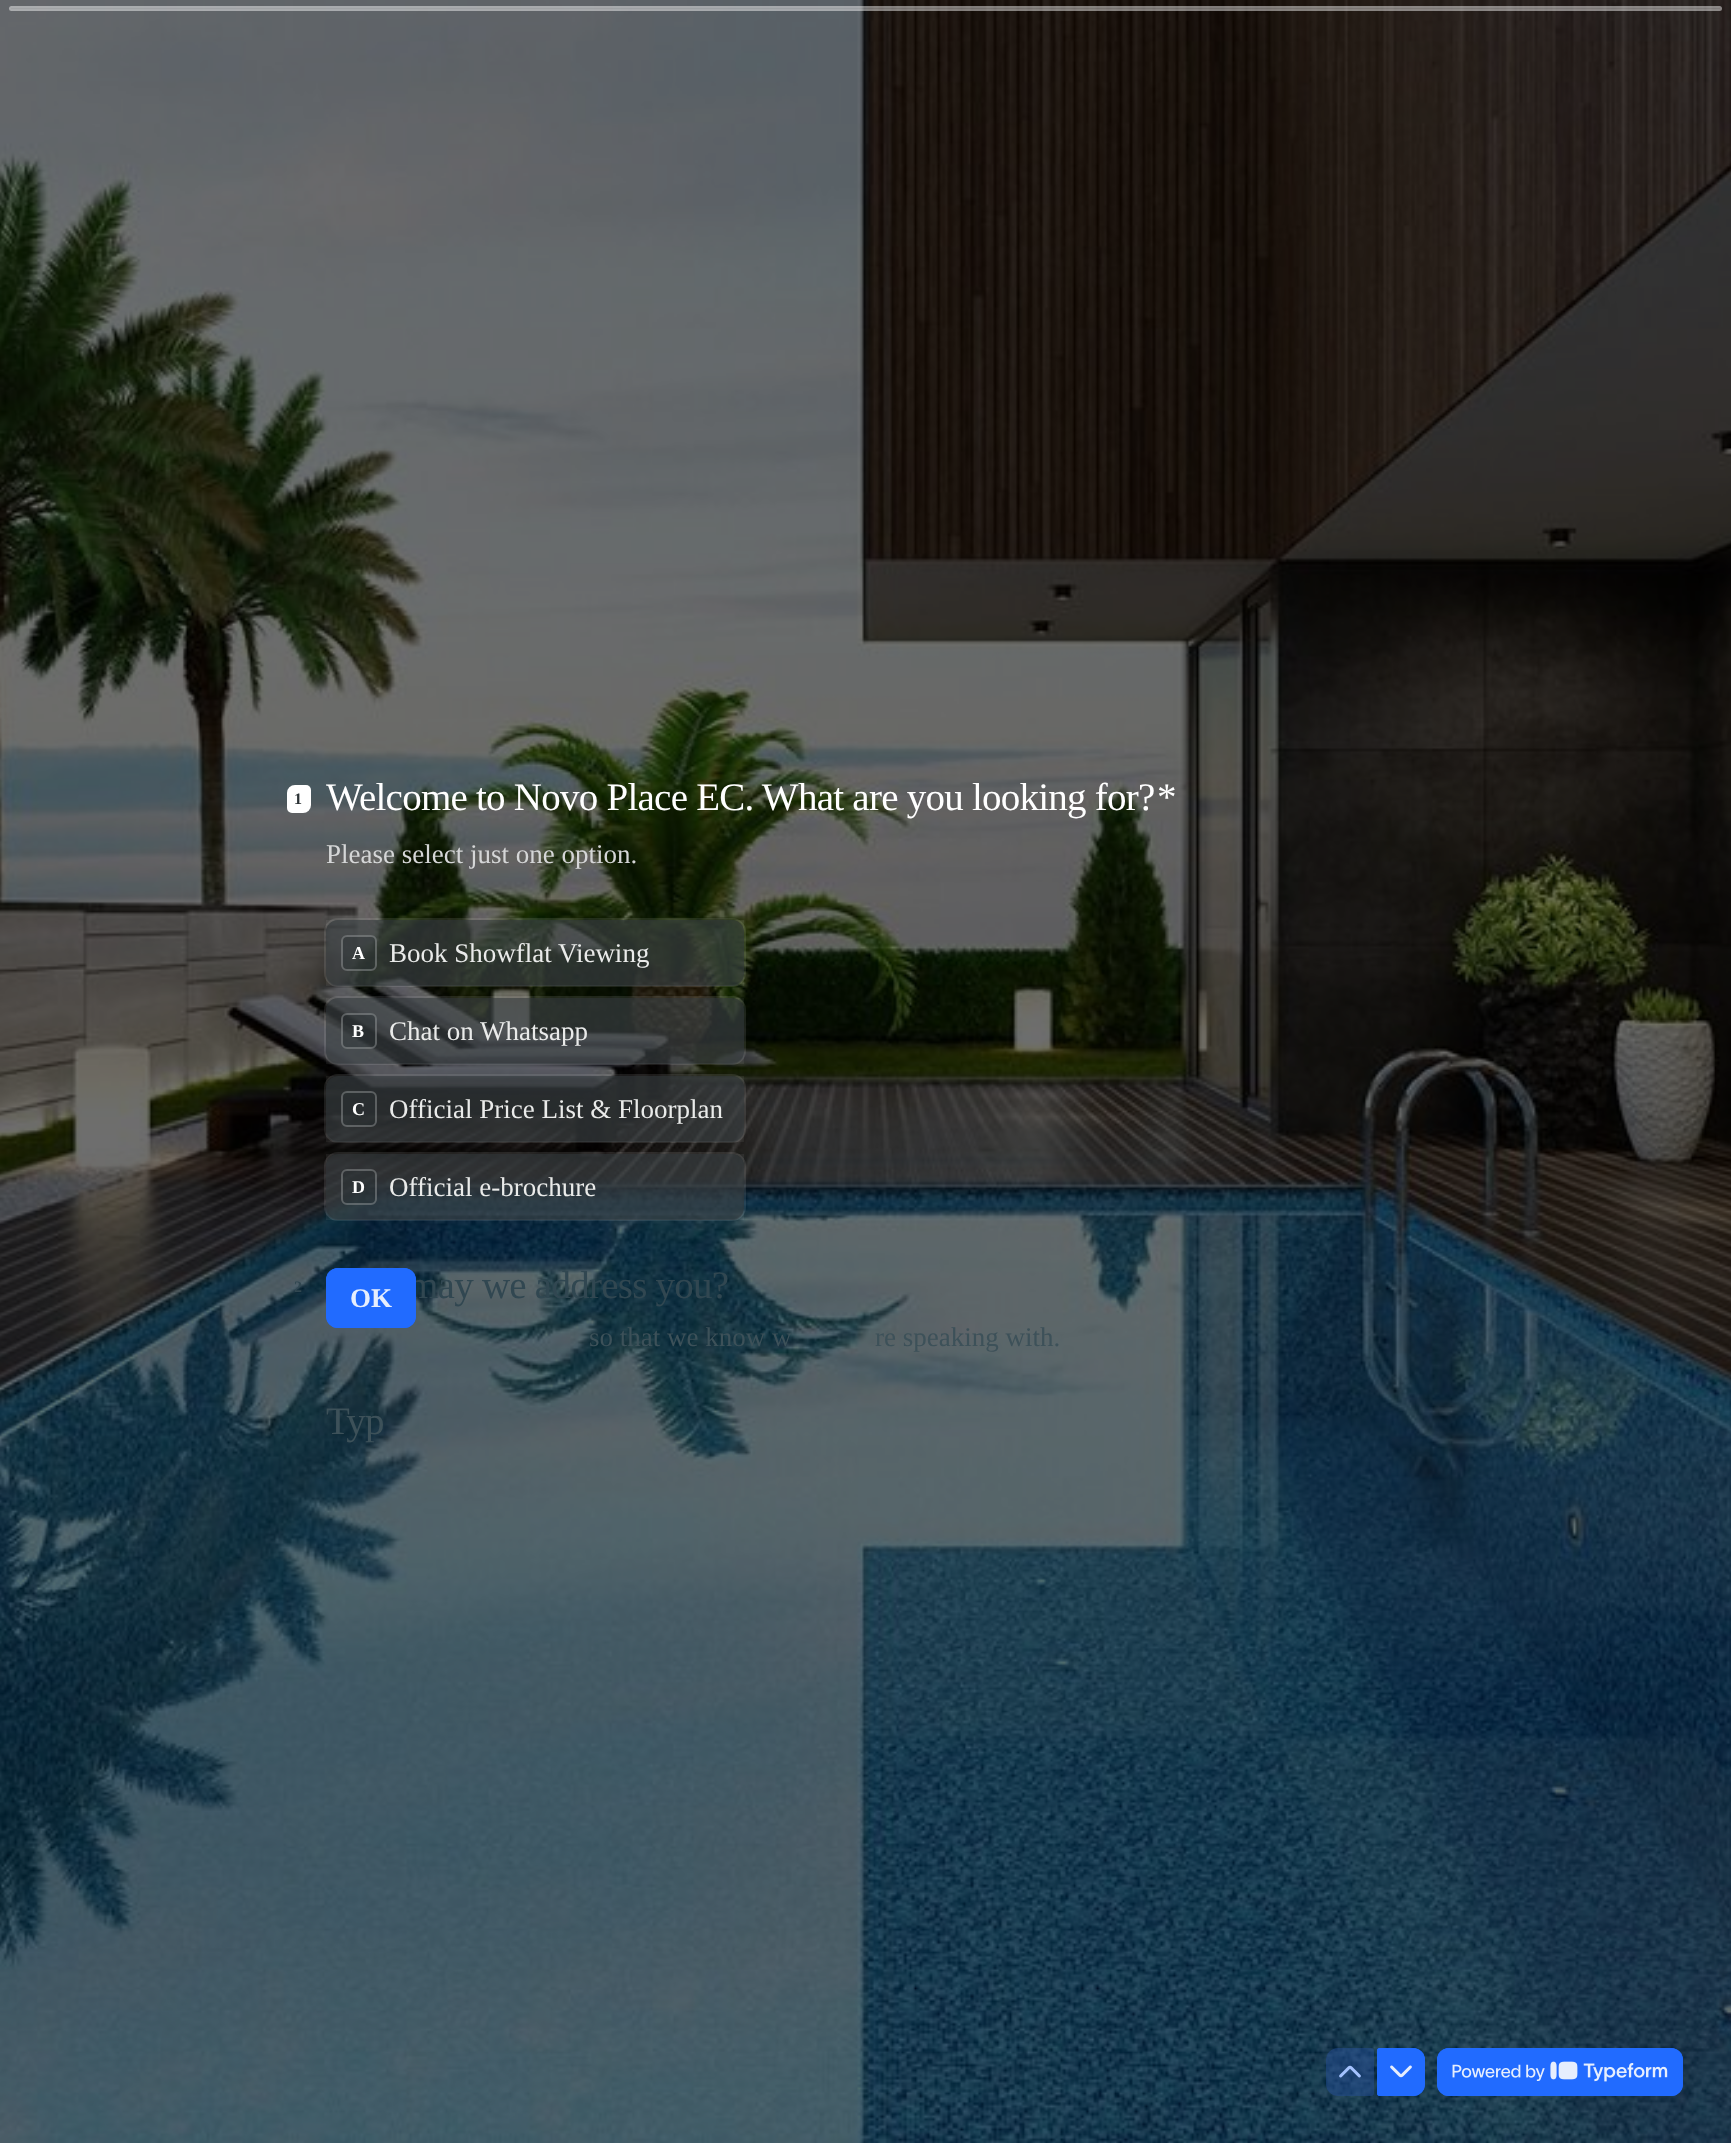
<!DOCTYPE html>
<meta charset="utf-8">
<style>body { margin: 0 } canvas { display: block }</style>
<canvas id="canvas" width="1731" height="2143"></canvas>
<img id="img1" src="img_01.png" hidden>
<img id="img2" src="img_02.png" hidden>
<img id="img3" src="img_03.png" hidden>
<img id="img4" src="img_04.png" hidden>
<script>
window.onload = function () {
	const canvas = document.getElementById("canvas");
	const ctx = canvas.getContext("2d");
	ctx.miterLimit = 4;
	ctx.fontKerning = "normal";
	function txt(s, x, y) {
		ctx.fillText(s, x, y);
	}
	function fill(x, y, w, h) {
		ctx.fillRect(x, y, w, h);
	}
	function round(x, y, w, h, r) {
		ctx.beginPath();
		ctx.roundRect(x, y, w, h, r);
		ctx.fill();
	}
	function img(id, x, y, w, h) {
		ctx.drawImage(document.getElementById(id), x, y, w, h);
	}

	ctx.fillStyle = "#FFFFFF";
	fill(0, 0, 1731, 2143);
	img("img1", 0, 0, 1731, 2143);
	ctx.fillStyle = "rgba(255, 255, 255, 0.4)";
	round(9, 6, 1713, 5, 2.5);
	ctx.beginPath();
	ctx.roundRect(10, 7, 1711, 3, 1.5);
	ctx.strokeStyle = "rgba(255, 255, 255, 0.1)";
	ctx.lineWidth = 2;
	ctx.stroke();
	ctx.fillStyle = "#FFFFFF";
	ctx.beginPath();
	ctx.roundRect(287, 785, 24, 28, [8, 5, 8, 5]);
	ctx.fill();
	ctx.beginPath();
	ctx.roundRect(325, 919, 420, 67, 13);
	ctx.stroke();
	ctx.fillStyle = "rgba(43, 50, 53, 0.6)";
	round(326, 920, 418, 66, 12);
	ctx.fillStyle = "rgba(255, 255, 255, 0.06)";
	fill(326, 920, 418, 66);
	ctx.fillStyle = "rgba(43, 50, 53, 0.4)";
	round(341, 935, 36, 36, 6);
	ctx.beginPath();
	ctx.roundRect(342, 936, 34, 34, 5);
	ctx.strokeStyle = "rgba(255, 255, 255, 0.24)";
	ctx.stroke();
	ctx.beginPath();
	ctx.roundRect(325, 997, 420, 67, 13);
	ctx.strokeStyle = "rgba(255, 255, 255, 0.1)";
	ctx.stroke();
	ctx.fillStyle = "rgba(43, 50, 53, 0.6)";
	round(326, 998, 418, 66, 12);
	ctx.fillStyle = "rgba(255, 255, 255, 0.06)";
	fill(326, 998, 418, 66);
	ctx.fillStyle = "rgba(43, 50, 53, 0.4)";
	round(341, 1013, 36, 36, 6);
	ctx.beginPath();
	ctx.roundRect(342, 1014, 34, 34, 5);
	ctx.strokeStyle = "rgba(255, 255, 255, 0.24)";
	ctx.stroke();
	ctx.beginPath();
	ctx.roundRect(325, 1075, 420, 67, 13);
	ctx.strokeStyle = "rgba(255, 255, 255, 0.1)";
	ctx.stroke();
	ctx.fillStyle = "rgba(43, 50, 53, 0.6)";
	round(326, 1076, 418, 66, 12);
	ctx.fillStyle = "rgba(255, 255, 255, 0.06)";
	fill(326, 1076, 418, 66);
	ctx.fillStyle = "rgba(43, 50, 53, 0.4)";
	round(341, 1091, 36, 36, 6);
	ctx.beginPath();
	ctx.roundRect(342, 1092, 34, 34, 5);
	ctx.strokeStyle = "rgba(255, 255, 255, 0.24)";
	ctx.stroke();
	ctx.beginPath();
	ctx.roundRect(325, 1153, 420, 67, 13);
	ctx.strokeStyle = "rgba(255, 255, 255, 0.1)";
	ctx.stroke();
	ctx.fillStyle = "rgba(43, 50, 53, 0.6)";
	round(326, 1154, 418, 66, 12);
	ctx.fillStyle = "rgba(255, 255, 255, 0.06)";
	fill(326, 1154, 418, 66);
	ctx.fillStyle = "rgba(43, 50, 53, 0.4)";
	round(341, 1169, 36, 36, 6);
	ctx.beginPath();
	ctx.roundRect(342, 1170, 34, 34, 5);
	ctx.strokeStyle = "rgba(255, 255, 255, 0.24)";
	ctx.stroke();
	ctx.fillStyle = "rgba(43, 50, 53, 0.3)";
	ctx.beginPath();
	ctx.roundRect(1326, 2048, 48, 48, [12, 3, 3, 12]);
	ctx.fill();
	ctx.fillStyle = "rgba(33, 107, 255, 0.24)";
	ctx.beginPath();
	ctx.roundRect(1326, 2048, 48, 48, [12, 3, 3, 12]);
	ctx.fill();
	img("img2", 1339, 2065, 22, 13);
	ctx.beginPath();
	ctx.roundRect(1378, 2049, 46, 46, [2, 11, 11, 2]);
	ctx.strokeStyle = "#216BFF";
	ctx.stroke();
	ctx.fillStyle = "#216BFF";
	ctx.beginPath();
	ctx.roundRect(1377, 2048, 48, 48, [3, 12, 12, 3]);
	ctx.fill();
	img("img3", 1390, 2065, 22, 13);
	ctx.beginPath();
	ctx.roundRect(1438, 2049, 244, 46, 11);
	ctx.stroke();
	round(1437, 2048, 246, 48, 12);
	img("img4", 1452, 2061, 216, 21);
	ctx.font = "bold 16px Liberation Serif";
	ctx.fillStyle = "#2B3235";
	txt("1", 294, 804);
	ctx.letterSpacing = "-0.75px";
	ctx.font = "39px Liberation Serif";
	ctx.fillStyle = "#FFFFFF";
	txt("Welcome to Novo Place EC. What are you looking for?", 326, 810);
	txt("*", 1157, 810);
	ctx.letterSpacing = "0px";
	ctx.font = "27px Liberation Serif";
	ctx.fillStyle = "#D5D6D7";
	txt("Please select just one option.", 326, 863);
	ctx.font = "bold 18px Liberation Serif";
	ctx.fillStyle = "#FFFFFF";
	txt("A", 352, 959);
	ctx.font = "27px Liberation Serif";
	ctx.fillStyle = "#EAEBEA";
	txt("Book Showflat Viewing", 389, 962);
	ctx.font = "bold 18px Liberation Serif";
	ctx.fillStyle = "#FFFFFF";
	txt("B", 352, 1037);
	ctx.font = "27px Liberation Serif";
	ctx.fillStyle = "#EAEBEA";
	txt("Chat on Whatsapp", 389, 1040);
	ctx.font = "bold 18px Liberation Serif";
	ctx.fillStyle = "#FFFFFF";
	txt("C", 352, 1115);
	ctx.font = "27px Liberation Serif";
	ctx.fillStyle = "#EAEBEA";
	txt("Official Price List & Floorplan", 389, 1118);
	ctx.font = "bold 18px Liberation Serif";
	ctx.fillStyle = "#FFFFFF";
	txt("D", 352, 1193);
	ctx.font = "27px Liberation Serif";
	ctx.fillStyle = "#EAEBEA";
	txt("Official e-brochure", 389, 1196);
	ctx.font = "bold 16px Liberation Serif";
	ctx.fillStyle = "#314751";
	txt("2", 294, 1292);
	ctx.letterSpacing = "-0.75px";
	ctx.font = "39px Liberation Serif";
	txt("may we address you?", 408, 1298);
	ctx.beginPath();
	ctx.roundRect(327, 1269, 88, 58, 11);
	ctx.stroke();
	ctx.fillStyle = "#216BFF";
	round(326, 1268, 90, 60, 12);
	ctx.letterSpacing = "0px";
	ctx.font = "bold 27px Liberation Serif";
	ctx.fillStyle = "#E6EEFD";
	txt("OK", 350, 1307);
	ctx.font = "27px Liberation Serif";
	ctx.fillStyle = "#3D5159";
	txt("so that we know w", 589, 1346);
	txt("re speaking with.", 875, 1346);
	ctx.letterSpacing = "-0.75px";
	ctx.font = "39px Liberation Serif";
	txt("Typ", 326, 1434);
};
</script>
